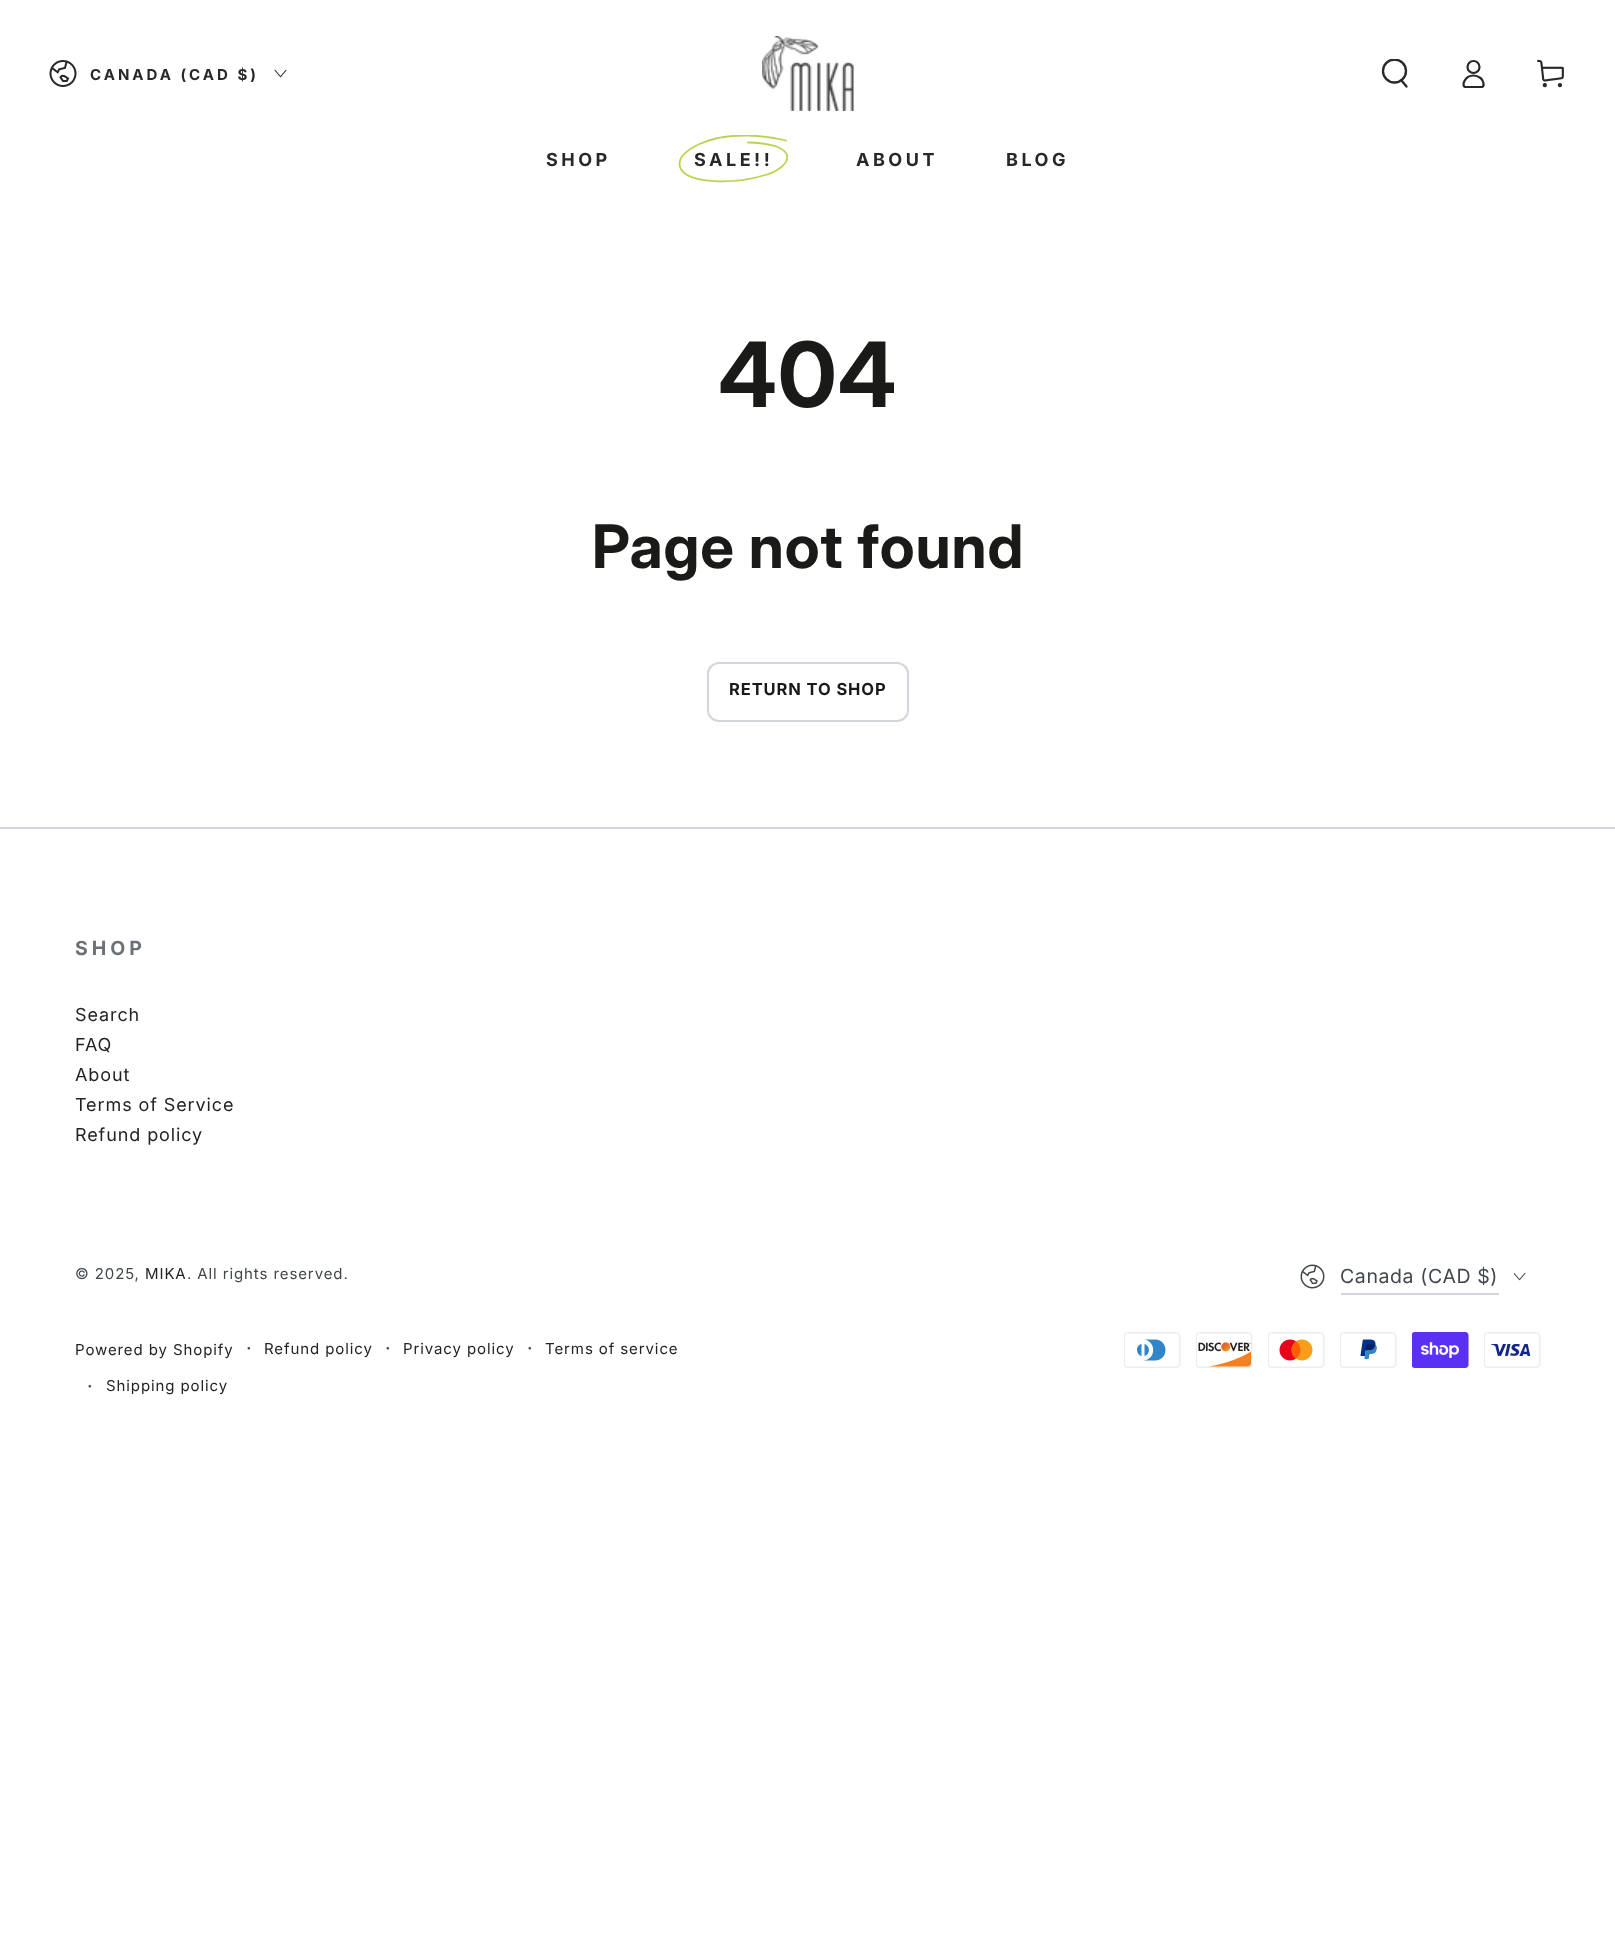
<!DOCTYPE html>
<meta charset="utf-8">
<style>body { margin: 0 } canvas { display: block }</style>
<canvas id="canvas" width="1615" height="1960"></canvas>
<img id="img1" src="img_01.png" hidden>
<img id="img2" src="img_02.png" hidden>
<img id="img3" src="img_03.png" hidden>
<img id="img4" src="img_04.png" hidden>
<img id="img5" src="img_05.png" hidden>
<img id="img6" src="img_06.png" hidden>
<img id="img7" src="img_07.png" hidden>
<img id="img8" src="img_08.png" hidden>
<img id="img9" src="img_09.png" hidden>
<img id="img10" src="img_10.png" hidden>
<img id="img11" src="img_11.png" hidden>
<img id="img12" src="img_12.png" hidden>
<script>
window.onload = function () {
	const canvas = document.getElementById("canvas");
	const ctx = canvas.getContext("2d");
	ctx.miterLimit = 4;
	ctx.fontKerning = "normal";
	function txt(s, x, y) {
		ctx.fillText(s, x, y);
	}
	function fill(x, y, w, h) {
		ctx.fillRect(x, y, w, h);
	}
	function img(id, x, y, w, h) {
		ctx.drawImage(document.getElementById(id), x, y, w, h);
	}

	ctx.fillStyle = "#FFFFFF";
	fill(0, 0, 1615, 1960);
	img("img1", 49, 60, 28, 27);
	img("img2", 274, 69, 13, 9);
	img("img3", 762, 36, 92, 75);
	ctx.save();
	ctx.beginPath();
	ctx.rect(1380, 59, 30, 30);
	ctx.clip();
	ctx.beginPath();
	ctx.arc(1394.5, 71, 11.5, 0, Math.PI * 2);
	ctx.strokeStyle = "#282828";
	ctx.lineWidth = 2.3;
	ctx.stroke();
	ctx.restore();
	ctx.beginPath();
	ctx.moveTo(1401.5, 80.5);
	ctx.lineTo(1406.5, 86.5);
	ctx.strokeStyle = "#282828";
	ctx.lineWidth = 2.3;
	ctx.lineCap = "round";
	ctx.stroke();
	ctx.beginPath();
	ctx.moveTo(1473.5, 75.5);
	ctx.bezierCurveTo(1464.5, 75.5, 1460.5, 87, 1466, 87);
	ctx.lineTo(1482, 87);
	ctx.bezierCurveTo(1485.5, 85.5, 1482.5, 79.5, 1480.5, 78);
	ctx.bezierCurveTo(1478.5, 76.5, 1476, 75.5, 1473.5, 75.5);
	ctx.closePath();
	ctx.lineWidth = 2.2;
	ctx.lineCap = "butt";
	ctx.stroke();
	ctx.beginPath();
	ctx.arc(1473.5, 67, 6, 0, Math.PI * 2);
	ctx.stroke();
	img("img4", 1537, 59, 27, 29);
	ctx.beginPath();
	ctx.roundRect(708, 663, 200, 58, 11);
	ctx.strokeStyle = "#D2D5D9";
	ctx.lineWidth = 2;
	ctx.stroke();
	ctx.fillStyle = "#D2D5D9";
	fill(0, 827, 1615, 2);
	img("img5", 1300, 1264, 25, 25);
	fill(1341, 1293, 158, 2);
	img("img6", 1514, 1272, 12, 9);
	img("img7", 1124, 1332, 57, 36);
	img("img8", 1196, 1332, 57, 36);
	img("img9", 1268, 1332, 57, 36);
	img("img10", 1340, 1332, 57, 36);
	img("img11", 1412, 1332, 57, 36);
	img("img12", 1484, 1332, 57, 36);
	ctx.letterSpacing = "3px";
	ctx.font = "bold 15px 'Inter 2'";
	ctx.fillStyle = "#282828";
	txt("CANADA (CAD $)", 90, 80);
	ctx.letterSpacing = "3.5px";
	ctx.font = "bold 18px 'Inter 2'";
	txt("SHOP", 546, 166);
	txt("SALE!!", 694, 166);
	ctx.save();
	ctx.beginPath();
	ctx.rect(678, 135, 110, 48);
	ctx.clip();
	ctx.beginPath();
	ctx.moveTo(786, 140.5);
	ctx.bezierCurveTo(769, 136, 728.5, 130.5, 699.5, 144);
	ctx.bezierCurveTo(671, 157.5, 679, 170, 687, 175);
	ctx.bezierCurveTo(695.5, 180, 726.5, 186.5, 765.5, 175);
	ctx.bezierCurveTo(779, 171.5, 800.5, 156.5, 776.5, 146.5);
	ctx.bezierCurveTo(773, 145.5, 762.5, 142.5, 748, 142.5);
	ctx.strokeStyle = "#B9D451";
	ctx.lineWidth = 1.8;
	ctx.lineCap = "round";
	ctx.lineJoin = "round";
	ctx.stroke();
	ctx.restore();
	txt("ABOUT", 856, 166);
	txt("BLOG", 1006, 166);
	ctx.letterSpacing = "0.9px";
	ctx.font = "bold 90px Inter";
	ctx.fillStyle = "#1A1B18";
	txt("404", 718, 407);
	ctx.font = "bold 60px Inter";
	txt("Page not found", 592, 568);
	ctx.font = "bold 16.5px 'Inter 2'";
	txt("RETURN TO SHOP", 729, 695);
	ctx.letterSpacing = "4px";
	ctx.font = "bold 19.5px 'Inter 2'";
	ctx.fillStyle = "#6B7177";
	txt("SHOP", 75, 955);
	ctx.letterSpacing = "0.9px";
	ctx.font = "18px Inter";
	ctx.fillStyle = "#212326";
	txt("Search", 75, 1021);
	txt("FAQ", 75, 1051);
	txt("About", 75, 1081);
	txt("Terms of Service", 75, 1111);
	txt("Refund policy", 75, 1141);
	ctx.font = "15px Inter";
	ctx.fillStyle = "#42474C";
	txt("© 2025,", 75, 1279);
	ctx.fillStyle = "#212326";
	txt("MIKA", 145, 1279);
	ctx.fillStyle = "#42474C";
	txt(". All rights reserved.", 187, 1279);
	ctx.fillStyle = "#212326";
	txt("Powered by Shopify", 75, 1355);
	ctx.font = "19.5px Inter";
	ctx.fillStyle = "#42474C";
	txt("·", 246, 1355);
	ctx.font = "15px Inter";
	ctx.fillStyle = "#212326";
	txt("Refund policy", 264, 1354);
	ctx.font = "19.5px Inter";
	ctx.fillStyle = "#42474C";
	txt("·", 385, 1355);
	ctx.font = "15px Inter";
	ctx.fillStyle = "#212326";
	txt("Privacy policy", 403, 1354);
	ctx.font = "19.5px Inter";
	ctx.fillStyle = "#42474C";
	txt("·", 527, 1355);
	ctx.font = "15px Inter";
	ctx.fillStyle = "#212326";
	txt("Terms of service", 545, 1354);
	ctx.font = "19.5px Inter";
	ctx.fillStyle = "#42474C";
	txt("·", 87, 1393);
	ctx.font = "15px Inter";
	ctx.fillStyle = "#212326";
	txt("Shipping policy", 106, 1391);
	ctx.letterSpacing = "0.6px";
	ctx.font = "19.5px Inter";
	ctx.fillStyle = "#42474C";
	txt("Canada (CAD $)", 1340, 1283);
};
</script>
